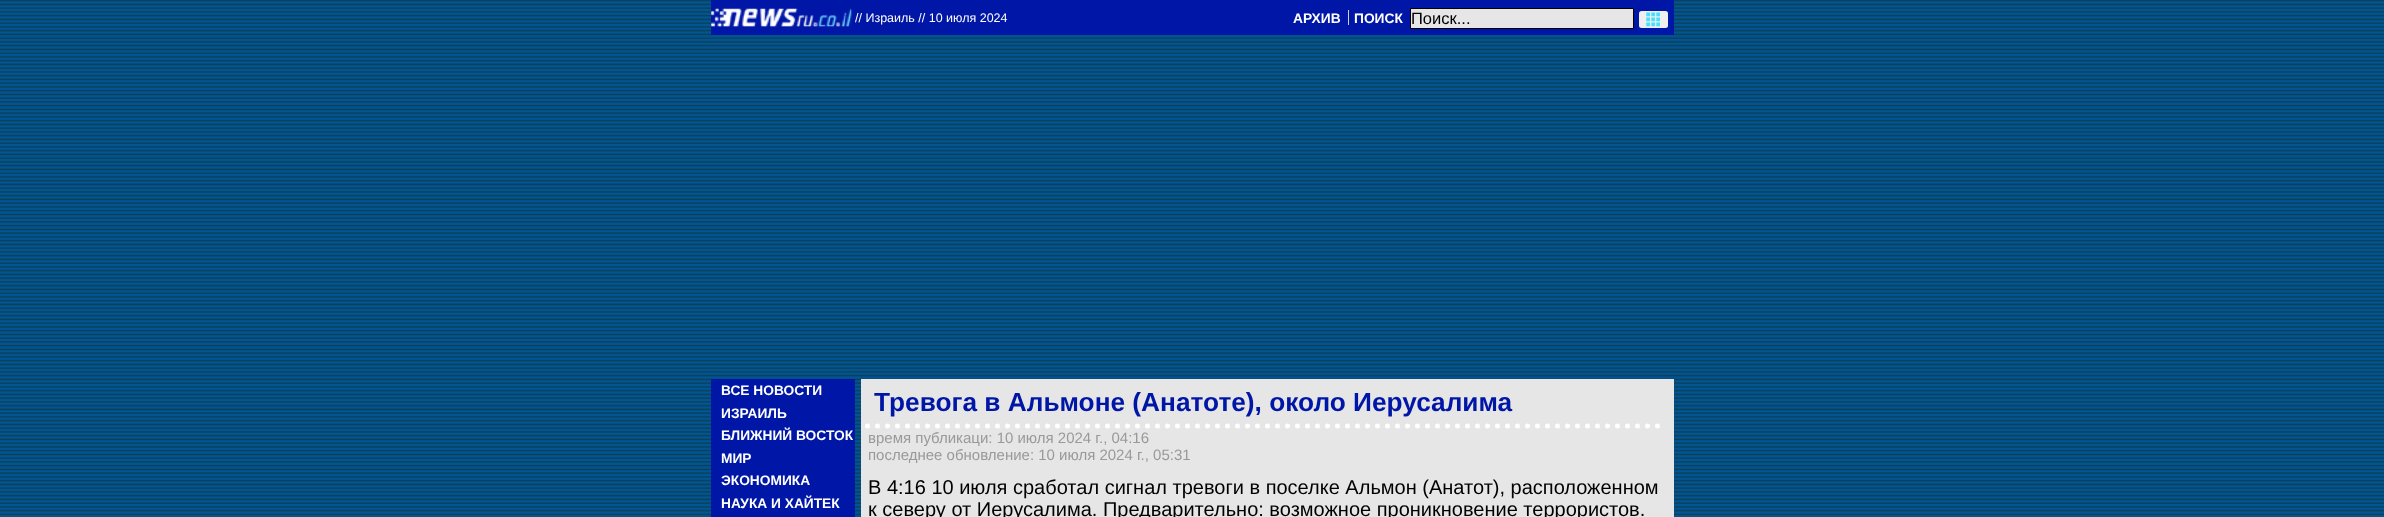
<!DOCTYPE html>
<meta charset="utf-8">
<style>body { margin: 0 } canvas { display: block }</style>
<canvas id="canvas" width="2384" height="517"></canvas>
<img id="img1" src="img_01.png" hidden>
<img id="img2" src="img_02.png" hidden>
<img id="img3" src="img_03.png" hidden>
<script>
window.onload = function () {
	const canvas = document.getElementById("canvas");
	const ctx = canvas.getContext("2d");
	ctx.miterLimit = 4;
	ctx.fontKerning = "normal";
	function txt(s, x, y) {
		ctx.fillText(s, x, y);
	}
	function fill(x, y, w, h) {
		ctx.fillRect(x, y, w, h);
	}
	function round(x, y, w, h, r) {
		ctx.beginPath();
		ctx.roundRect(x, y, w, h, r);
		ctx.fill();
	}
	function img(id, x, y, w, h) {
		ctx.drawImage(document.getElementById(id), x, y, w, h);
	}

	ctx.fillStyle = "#FFFFFF";
	fill(0, 0, 2384, 517);
	img("img1", 0, 0, 2384, 517);
	ctx.fillStyle = "#0016A6";
	fill(711, 0, 963, 35);
	img("img2", 711, 8, 141, 19);
	ctx.fillStyle = "#CFD1E2";
	fill(1348, 10, 1, 15);
	ctx.fillStyle = "#E6E6E6";
	ctx.beginPath();
	ctx.rect(1410.5, 8.5, 223, 20);
	ctx.fill();
	ctx.strokeStyle = "#000000";
	ctx.stroke();
	ctx.fillStyle = "#EFEFEF";
	round(1639, 11, 29, 17, 2.5);
	img("img3", 1646, 12, 14, 15);
	ctx.fillStyle = "#0016A6";
	fill(711, 379, 144, 138);
	ctx.fillStyle = "#E6E6E6";
	fill(861, 379, 813, 138);
	ctx.beginPath();
	ctx.moveTo(867.5, 426);
	ctx.lineTo(1667.5, 426);
	ctx.strokeStyle = "#FFFFFF";
	ctx.lineWidth = 5;
	ctx.lineCap = "round";
	ctx.setLineDash([0, 10]);
	ctx.stroke();
	ctx.font = "12.5px Liberation Sans";
	ctx.fillStyle = "#FFFFFF";
	txt("// Израиль // 10 июля 2024", 855, 22);
	ctx.font = "bold 13.75px Liberation Sans";
	txt("АРХИВ", 1293, 23);
	txt("ПОИСК", 1354, 23);
	ctx.font = "16.5px Liberation Sans";
	ctx.fillStyle = "#000000";
	txt("Поиск...", 1411, 24);
	ctx.font = "bold 13.75px Liberation Sans";
	ctx.fillStyle = "#FFFFFF";
	txt("ВСЕ НОВОСТИ", 721, 395);
	txt("ИЗРАИЛЬ", 721, 418);
	txt("БЛИЖНИЙ ВОСТОК", 721, 440);
	txt("МИР", 721, 463);
	txt("ЭКОНОМИКА", 721, 485);
	txt("НАУКА И ХАЙТЕК", 721, 508);
	ctx.font = "bold 26.25px Liberation Sans";
	ctx.fillStyle = "#0016A6";
	txt("Тревога в Альмоне (Анатоте), около Иерусалима", 874, 411);
	ctx.font = "15px Liberation Sans";
	ctx.fillStyle = "#999999";
	txt("время публикаци: 10 июля 2024 г., 04:16", 868, 443);
	txt("последнее обновление: 10 июля 2024 г., 05:31", 868, 460);
	ctx.font = "20px Liberation Sans";
	ctx.fillStyle = "#000000";
	txt("В 4:16 10 июля сработал сигнал тревоги в поселке Альмон (Анатот), расположенном", 868, 494);
	txt("к северу от Иерусалима. Предварительно: возможное проникновение террористов.", 868, 516);
};
</script>
